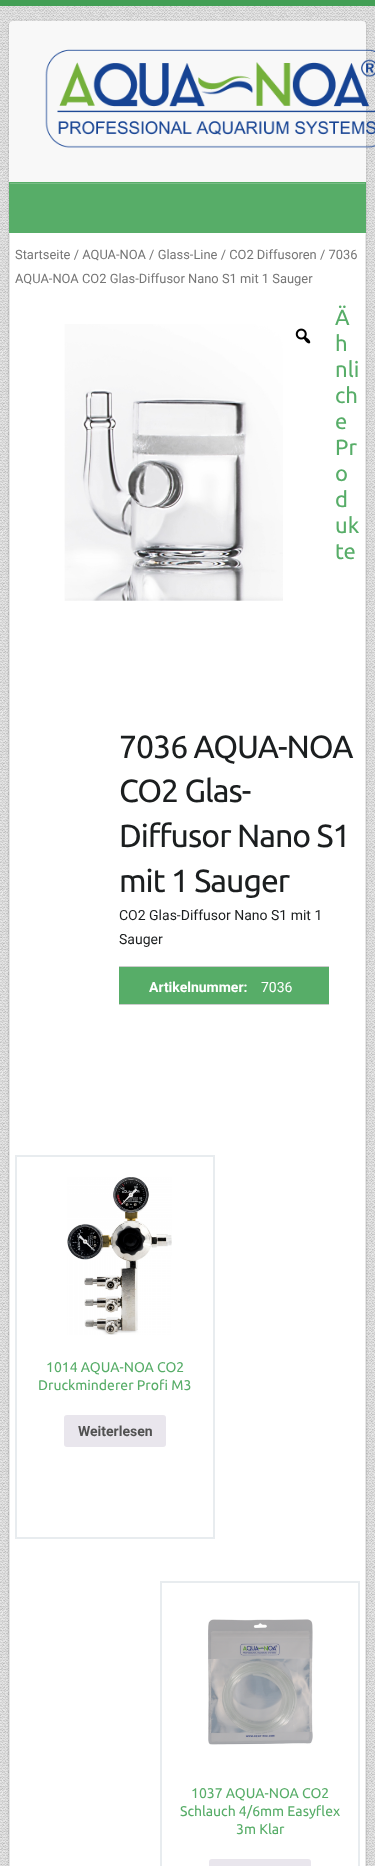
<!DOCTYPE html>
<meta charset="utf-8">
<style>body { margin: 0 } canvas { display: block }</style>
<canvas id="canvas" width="375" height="1866"></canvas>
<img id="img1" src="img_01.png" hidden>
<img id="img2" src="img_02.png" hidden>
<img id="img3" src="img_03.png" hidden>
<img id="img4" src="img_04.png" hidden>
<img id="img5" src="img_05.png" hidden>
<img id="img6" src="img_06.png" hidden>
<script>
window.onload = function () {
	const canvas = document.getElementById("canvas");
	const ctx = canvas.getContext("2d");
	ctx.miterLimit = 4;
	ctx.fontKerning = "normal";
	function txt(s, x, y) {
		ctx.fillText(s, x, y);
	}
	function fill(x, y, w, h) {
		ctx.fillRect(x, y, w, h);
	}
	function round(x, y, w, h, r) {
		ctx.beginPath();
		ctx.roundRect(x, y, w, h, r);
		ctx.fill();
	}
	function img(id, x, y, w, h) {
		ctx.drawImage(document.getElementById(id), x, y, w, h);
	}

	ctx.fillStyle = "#FFFFFF";
	fill(0, 0, 375, 1866);
	img("img1", 0, 6, 375, 1860);
	ctx.fillStyle = "#439F55";
	fill(0, 0, 375, 6);
	ctx.fillStyle = "rgba(0, 0, 0, 0.2)";
	ctx.filter = "blur(1px)";
	ctx.beginPath();
	ctx.roundRect(9, 22, 357, 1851, 4);
	ctx.fill();
	ctx.filter = "none";
	ctx.fillStyle = "#F8F8F8";
	round(9, 21, 357, 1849, 4);
	img("img2", 45, 49, 330, 99);
	ctx.fillStyle = "rgba(0, 0, 0, 0.2)";
	ctx.filter = "blur(1px)";
	ctx.beginPath();
	ctx.rect(10, 234, 355, 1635);
	ctx.fill();
	ctx.filter = "none";
	ctx.fillStyle = "#57AD68";
	fill(9, 182, 357, 51);
	ctx.fillStyle = "#79BD86";
	fill(10, 183, 355, 1);
	ctx.fillStyle = "#FFFFFF";
	fill(10, 233, 355, 1633);
	ctx.strokeStyle = "#E8ECEF";
	ctx.lineWidth = 2;
	ctx.strokeRect(16, 1156, 198, 382);
	img("img3", 67, 1177, 105, 158);
	ctx.fillStyle = "#E9E6ED";
	round(64, 1415, 102, 32, 3);
	ctx.strokeRect(161, 1582, 198, 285);
	img("img4", 208, 1619, 105, 126);
	round(209, 1859, 102, 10, 3);
	img("img5", 64, 324, 219, 277);
	img("img6", 295, 328, 16, 16);
	ctx.fillStyle = "#57AD68";
	fill(119, 967, 210, 37);
	ctx.fillStyle = "#CCCCCC";
	fill(119, 966, 210, 1);
	fill(119, 1004, 210, 1);
	ctx.font = "12.9px Roboto";
	ctx.fillStyle = "#767676";
	txt("Startseite / AQUA-NOA / Glass-Line / CO2 Diffusoren / 7036", 15, 259);
	txt("AQUA-NOA CO2 Glas-Diffusor Nano S1 mit 1 Sauger", 15, 283);
	ctx.font = "22px Ubuntu";
	ctx.fillStyle = "#57AD68";
	txt("Ä", 335, 325);
	txt("h", 335, 351);
	txt("nli", 335, 377);
	txt("ch", 335, 403);
	txt("e", 335, 429);
	txt("Pr", 335, 455);
	txt("o", 335, 481);
	txt("d", 335, 507);
	txt("uk", 335, 533);
	txt("te", 335, 559);
	ctx.font = "14px Ubuntu";
	txt("1014 AQUA-NOA CO2", 46, 1372);
	txt("Druckminderer Profi M3", 38, 1390);
	ctx.font = "bold 14px Roboto";
	ctx.fillStyle = "#515151";
	txt("Weiterlesen", 78, 1436);
	ctx.font = "14px Ubuntu";
	ctx.fillStyle = "#57AD68";
	txt("1037 AQUA-NOA CO2", 191, 1798);
	txt("Schlauch 4/6mm Easyflex", 180, 1816);
	txt("3m Klar", 236, 1834);
	ctx.letterSpacing = "-1px";
	ctx.font = "32px Ubuntu";
	ctx.fillStyle = "#1B1E1F";
	txt("7036 AQUA-NOA", 119, 758);
	txt("CO2 Glas-", 119, 802);
	txt("Diffusor Nano S1", 119, 847);
	txt("mit 1 Sauger", 119, 892);
	ctx.letterSpacing = "0px";
	ctx.font = "14px Roboto";
	txt("CO2 Glas-Diffusor Nano S1 mit 1", 119, 920);
	txt("Sauger", 119, 944);
	ctx.font = "bold 14px Roboto";
	ctx.fillStyle = "#FFFFFF";
	txt("Artikelnummer:", 149, 992);
	ctx.font = "14px Roboto";
	txt("7036", 261, 992);
};
</script>
